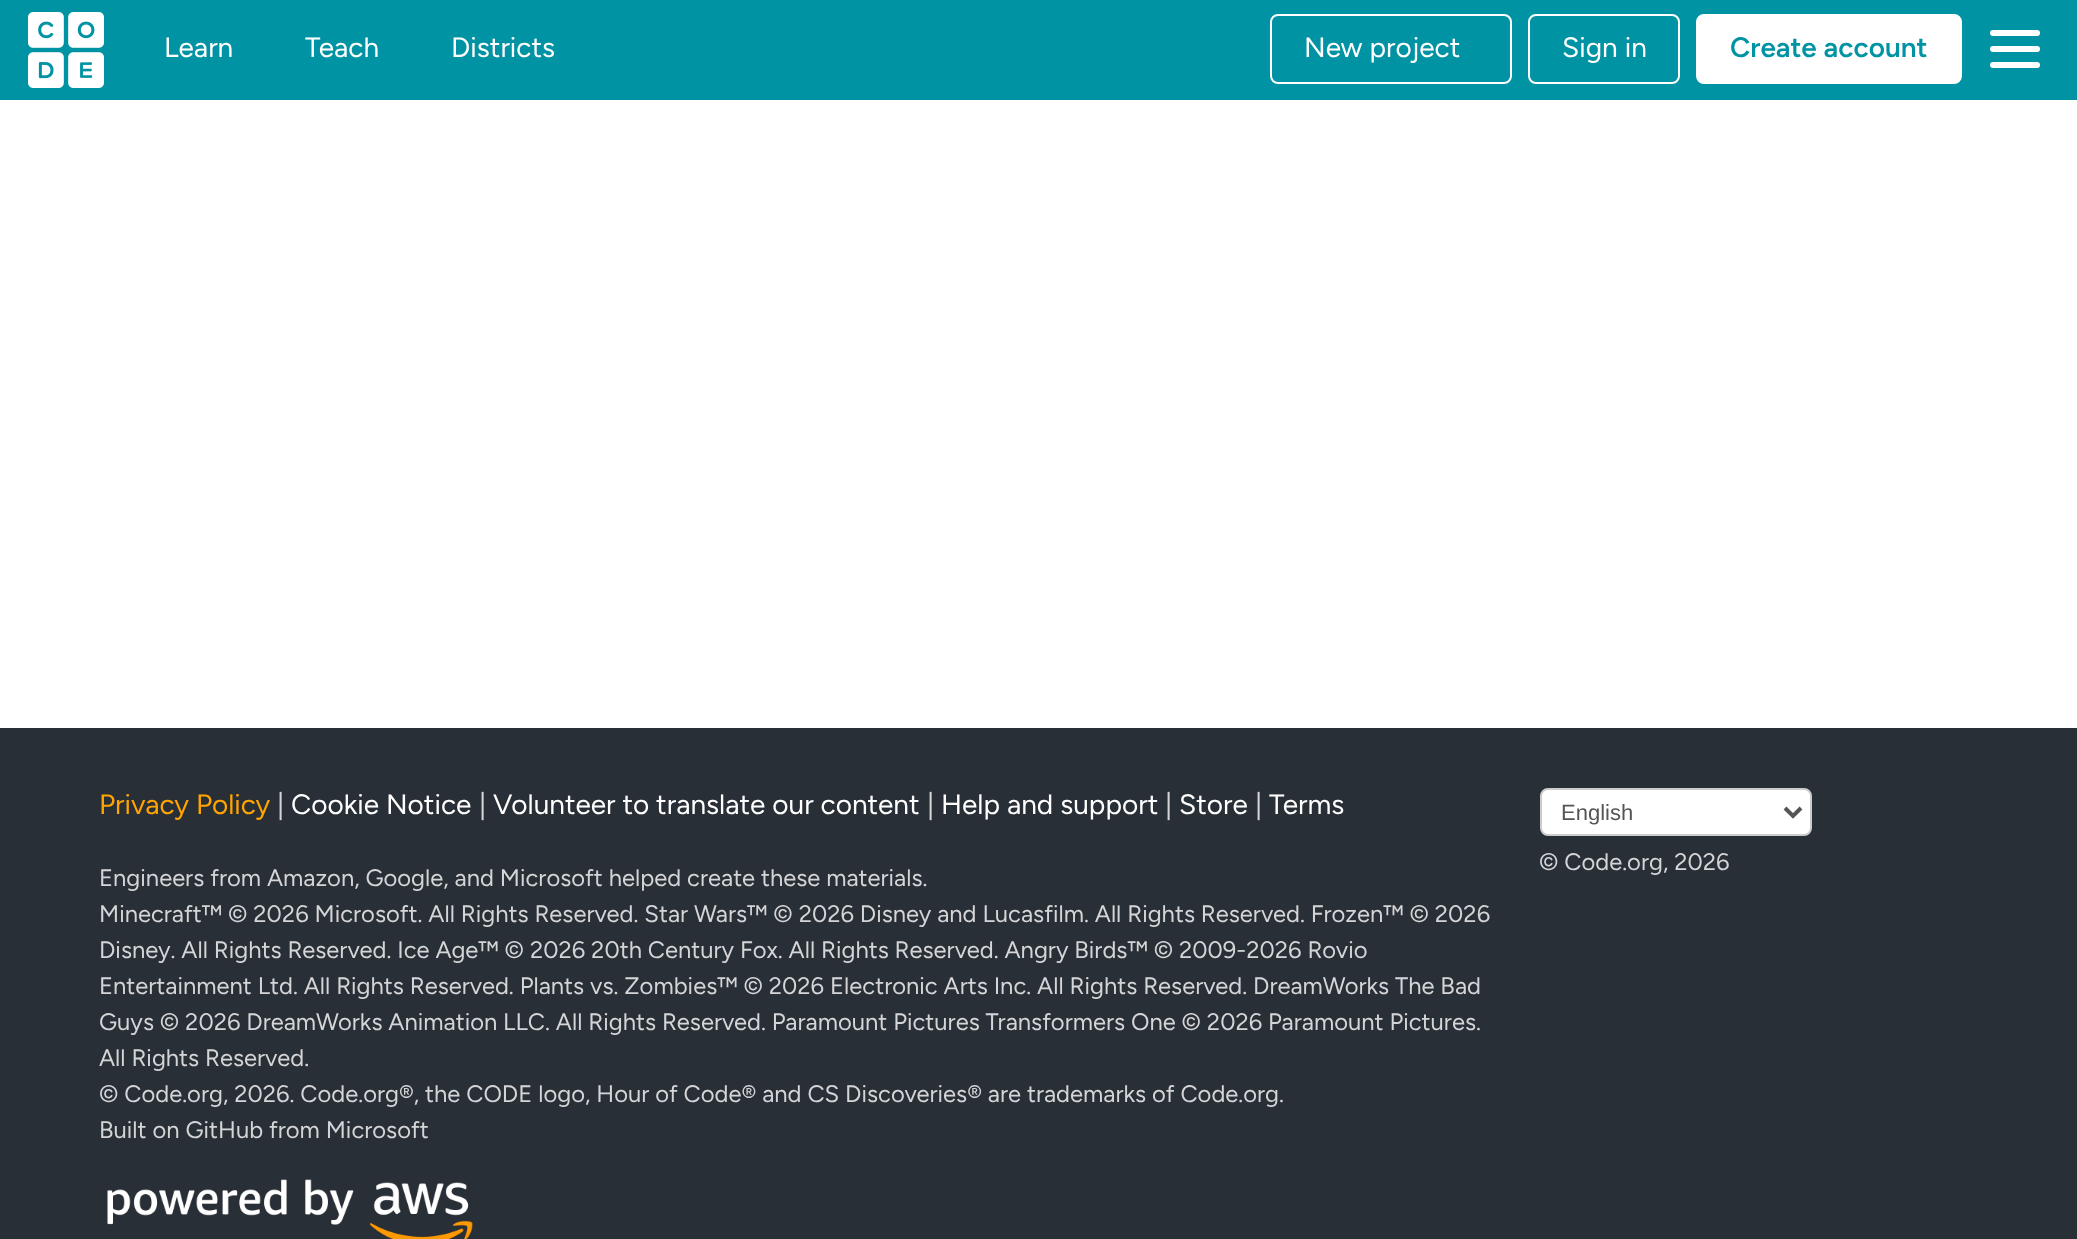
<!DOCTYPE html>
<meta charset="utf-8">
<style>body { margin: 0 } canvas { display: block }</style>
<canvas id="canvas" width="2077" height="1239"></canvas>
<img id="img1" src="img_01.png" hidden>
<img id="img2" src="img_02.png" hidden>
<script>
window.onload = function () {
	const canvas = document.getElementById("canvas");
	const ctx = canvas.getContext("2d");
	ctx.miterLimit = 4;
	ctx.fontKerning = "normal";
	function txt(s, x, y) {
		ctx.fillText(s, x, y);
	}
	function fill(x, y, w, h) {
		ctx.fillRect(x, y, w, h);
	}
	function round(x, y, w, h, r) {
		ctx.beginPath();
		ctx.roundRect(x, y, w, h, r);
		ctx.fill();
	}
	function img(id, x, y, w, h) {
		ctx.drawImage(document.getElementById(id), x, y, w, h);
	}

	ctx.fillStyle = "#FFFFFF";
	fill(0, 0, 2077, 1239);
	ctx.fillStyle = "#0093A4";
	fill(0, 0, 2077, 100);
	img("img1", 28, 12, 76, 76);
	ctx.beginPath();
	ctx.roundRect(1271, 15, 240, 68, 7);
	ctx.strokeStyle = "#FFFFFF";
	ctx.lineWidth = 2;
	ctx.stroke();
	ctx.beginPath();
	ctx.roundRect(1529, 15, 150, 68, 7);
	ctx.stroke();
	ctx.fillStyle = "#FFFFFF";
	ctx.beginPath();
	ctx.roundRect(1697, 15, 264, 68, 7);
	ctx.fill();
	ctx.stroke();
	round(1990, 46, 50, 6, 3);
	round(1990, 30, 50, 6, 3);
	round(1990, 62, 50, 6, 3);
	ctx.fillStyle = "#292F36";
	fill(0, 728, 2077, 511);
	img("img2", 107, 1179, 366, 60);
	ctx.fillStyle = "#FFFFFF";
	ctx.beginPath();
	ctx.roundRect(1541, 789, 270, 46, 7);
	ctx.fill();
	ctx.strokeStyle = "#CCCCCC";
	ctx.stroke();
	ctx.beginPath();
	ctx.moveTo(1785, 808);
	ctx.lineTo(1793, 816);
	ctx.lineTo(1801, 808);
	ctx.strokeStyle = "#555555";
	ctx.lineWidth = 4;
	ctx.stroke();
	ctx.font = "28px Figtree";
	txt("Learn", 164, 57);
	txt("Teach", 305, 57);
	txt("Districts", 451, 57);
	txt("New project", 1304, 57);
	txt("Sign in", 1562, 57);
	ctx.font = "600 28px Figtree";
	ctx.fillStyle = "#0093A4";
	txt("Create account", 1730, 57);
	ctx.font = "28px Figtree";
	ctx.fillStyle = "#FFA400";
	txt("Privacy Policy", 99, 814);
	ctx.fillStyle = "#D4D5D7";
	txt("|", 277, 814);
	ctx.fillStyle = "#FFFFFF";
	txt("Cookie Notice", 291, 814);
	ctx.fillStyle = "#D4D5D7";
	txt("|", 479, 814);
	ctx.fillStyle = "#FFFFFF";
	txt("Volunteer to translate our content", 493, 814);
	ctx.fillStyle = "#D4D5D7";
	txt("|", 927, 814);
	ctx.fillStyle = "#FFFFFF";
	txt("Help and support", 941, 814);
	ctx.fillStyle = "#D4D5D7";
	txt("|", 1165, 814);
	ctx.fillStyle = "#FFFFFF";
	txt("Store", 1179, 814);
	ctx.fillStyle = "#D4D5D7";
	txt("|", 1255, 814);
	ctx.fillStyle = "#FFFFFF";
	txt("Terms", 1269, 814);
	ctx.font = "23.8px Figtree";
	ctx.fillStyle = "#D4D5D7";
	txt("Engineers from Amazon, Google, and Microsoft helped create these materials.", 99, 886);
	txt("Minecraft™ © 2026 Microsoft. All Rights Reserved. Star Wars™ © 2026 Disney and Lucasfilm. All Rights Reserved. Frozen™ © 2026", 99, 922);
	txt("Disney. All Rights Reserved. Ice Age™ © 2026 20th Century Fox. All Rights Reserved. Angry Birds™ © 2009-2026 Rovio", 99, 958);
	txt("Entertainment Ltd. All Rights Reserved. Plants vs. Zombies™ © 2026 Electronic Arts Inc. All Rights Reserved. DreamWorks The Bad", 99, 994);
	txt("Guys © 2026 DreamWorks Animation LLC. All Rights Reserved. Paramount Pictures Transformers One © 2026 Paramount Pictures.", 99, 1030);
	txt("All Rights Reserved.", 99, 1066);
	txt("© Code.org, 2026. Code.org®, the CODE logo, Hour of Code® and CS Discoveries® are trademarks of Code.org.", 99, 1102);
	txt("Built on GitHub from Microsoft", 99, 1138);
	ctx.font = "22px Liberation Sans";
	ctx.fillStyle = "#555555";
	txt("English", 1561, 820);
	ctx.font = "23.8px Figtree";
	ctx.fillStyle = "#D4D5D7";
	txt("© Code.org, 2026", 1539, 870);
};
</script>
